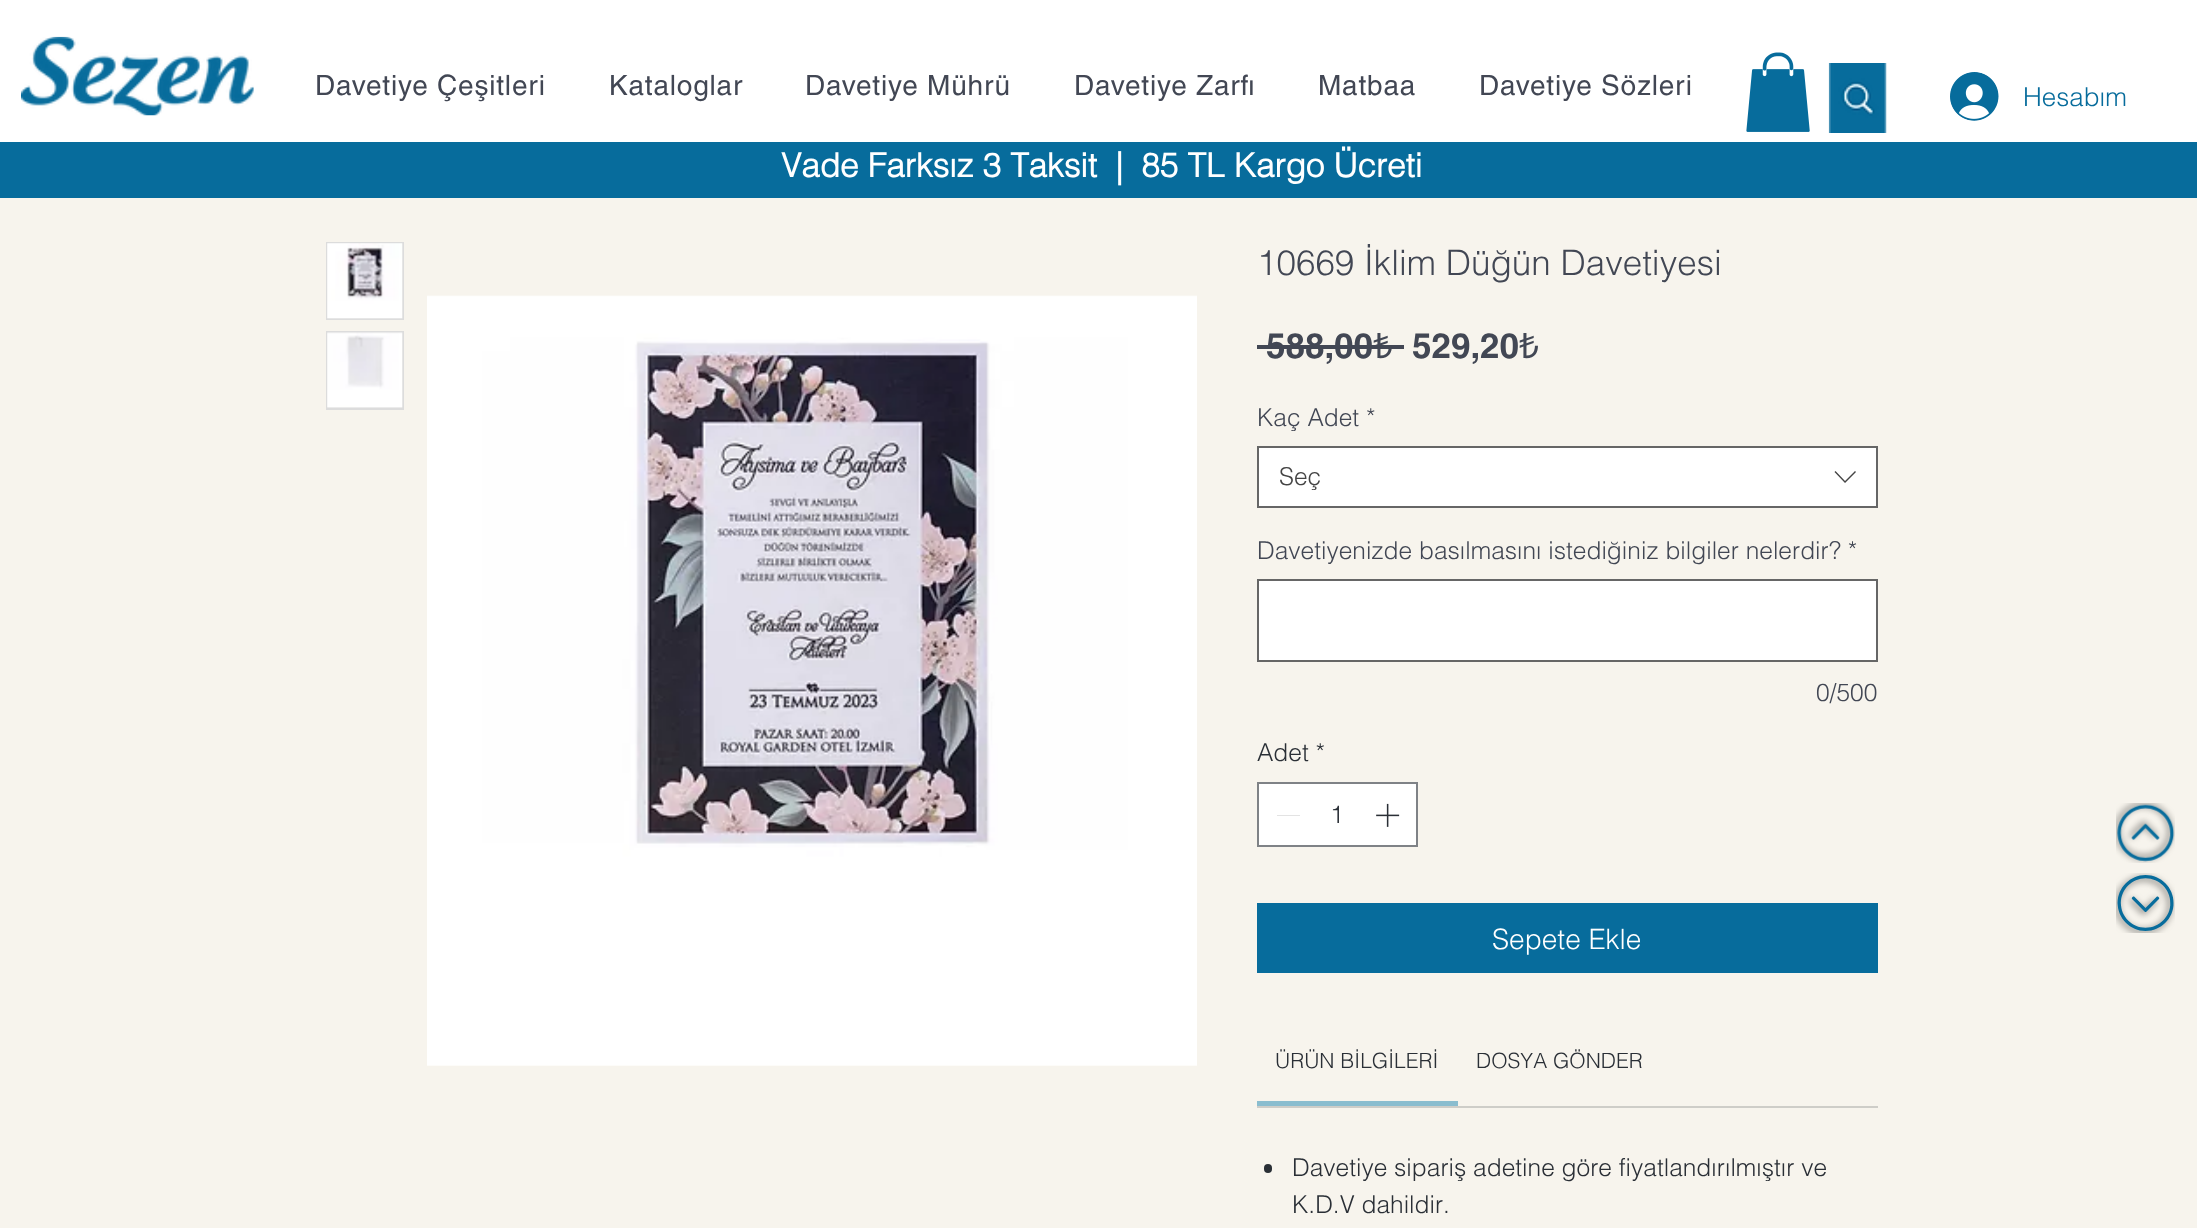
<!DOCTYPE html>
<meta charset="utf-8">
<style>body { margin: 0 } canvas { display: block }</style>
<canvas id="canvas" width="2197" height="1228"></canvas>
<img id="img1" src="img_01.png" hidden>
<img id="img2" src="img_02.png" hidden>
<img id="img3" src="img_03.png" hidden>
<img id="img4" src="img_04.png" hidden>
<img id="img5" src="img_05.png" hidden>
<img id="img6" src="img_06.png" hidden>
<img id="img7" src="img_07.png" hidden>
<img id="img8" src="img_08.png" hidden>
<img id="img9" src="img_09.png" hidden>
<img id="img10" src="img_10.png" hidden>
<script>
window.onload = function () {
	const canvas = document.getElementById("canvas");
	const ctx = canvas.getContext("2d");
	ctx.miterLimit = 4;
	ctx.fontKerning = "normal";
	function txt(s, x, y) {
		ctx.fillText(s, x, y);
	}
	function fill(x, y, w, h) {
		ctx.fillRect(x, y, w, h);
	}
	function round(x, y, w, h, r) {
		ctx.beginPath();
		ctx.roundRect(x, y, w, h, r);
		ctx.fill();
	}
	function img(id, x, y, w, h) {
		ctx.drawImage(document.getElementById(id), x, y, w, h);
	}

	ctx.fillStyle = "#F7F4ED";
	fill(0, 0, 2197, 1228);
	ctx.fillStyle = "#FFFFFF";
	fill(0, 0, 2197, 142);
	img("img1", 21, 36, 233, 80);
	img("img2", 1746, 52, 64, 80);
	img("img3", 1828, 63, 59, 70);
	img("img4", 1950, 72, 49, 49);
	ctx.fillStyle = "#076C9C";
	fill(0, 142, 2197, 56);
	ctx.fillStyle = "#DCDCDC";
	fill(326, 242, 78, 78);
	img("img5", 327, 243, 76, 76);
	fill(326, 331, 78, 79);
	img("img6", 327, 332, 76, 76);
	img("img7", 427, 295, 770, 771);
	ctx.fillStyle = "#424754";
	fill(1257, 345, 147, 4);
	ctx.fillStyle = "#FFFFFF";
	ctx.beginPath();
	ctx.rect(1258, 447, 619, 60);
	ctx.fill();
	ctx.strokeStyle = "#666666";
	ctx.lineWidth = 2;
	ctx.stroke();
	ctx.fillStyle = "#444444";
	ctx.beginPath();
	ctx.moveTo(1855, 471);
	ctx.lineTo(1856, 472);
	ctx.lineTo(1845, 483);
	ctx.lineTo(1834.5, 472);
	ctx.lineTo(1835.5, 471);
	ctx.lineTo(1845, 481);
	ctx.closePath();
	ctx.fill("evenodd");
	ctx.fillStyle = "#FFFFFF";
	ctx.beginPath();
	ctx.rect(1258, 580, 619, 81);
	ctx.fill();
	ctx.stroke();
	ctx.beginPath();
	ctx.rect(1258, 783, 159, 63);
	ctx.fill();
	ctx.strokeStyle = "#7F8286";
	ctx.stroke();
	ctx.fillStyle = "#E3E3E3";
	fill(1277, 815, 23, 1);
	img("img8", 1376, 803, 24, 24);
	ctx.fillStyle = "#076C9C";
	fill(1257, 903, 621, 70);
	ctx.fillStyle = "#CECDC8";
	fill(1257, 1106, 621, 2);
	ctx.fillStyle = "#8ABDCF";
	fill(1257, 1101, 201, 5);
	ctx.fillStyle = "#2A2F36";
	round(1264, 1164, 8, 9, 4);
	img("img9", 2116, 803, 59, 60);
	img("img10", 2116, 873, 59, 60);
	ctx.letterSpacing = "0.8px";
	ctx.font = "28px helvetica";
	ctx.fillStyle = "#424754";
	txt("Davetiye Çeşitleri", 315, 95);
	txt("Kataloglar", 609, 95);
	txt("Davetiye Mührü", 805, 95);
	txt("Davetiye Zarfı", 1074, 95);
	txt("Matbaa", 1318, 95);
	txt("Davetiye Sözleri", 1479, 95);
	ctx.letterSpacing = "0px";
	ctx.font = "300 26px helvetica";
	ctx.fillStyle = "#076C9C";
	txt("Hesabım", 2023, 106);
	ctx.font = "bold 33.25px helvetica";
	ctx.fillStyle = "#FFFFFF";
	txt("Vade Farksız 3 Taksit  |  85 TL Kargo Ücreti", 781, 177);
	ctx.font = "300 35px helvetica";
	ctx.fillStyle = "#424754";
	txt("10669 İklim Düğün Davetiyesi", 1257, 275);
	ctx.font = "bold 35px 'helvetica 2'";
	txt("588,00", 1266, 358);
	ctx.font = "35px Noto Sans";
	txt("₺", 1373, 358);
	ctx.font = "bold 35px 'helvetica 2'";
	txt("529,20", 1412, 358);
	ctx.font = "35px Noto Sans";
	txt("₺", 1519, 358);
	ctx.font = "300 24.5px helvetica";
	txt("Kaç Adet *", 1257, 426);
	ctx.fillStyle = "#444444";
	txt("Seç", 1279, 485);
	ctx.fillStyle = "#424754";
	txt("Davetiyenizde basılmasını istediğiniz bilgiler nelerdir? *", 1257, 559);
	txt("0/500", 1816, 701);
	ctx.fillStyle = "#2A2F36";
	txt("Adet *", 1257, 761);
	txt("1", 1330, 823);
	ctx.font = "300 28px helvetica";
	ctx.fillStyle = "#FFFFFF";
	txt("Sepete Ekle", 1492, 949);
	ctx.font = "300 21px helvetica";
	ctx.fillStyle = "#2A2F36";
	txt("ÜRÜN BİLGİLERİ", 1275, 1068);
	txt("DOSYA GÖNDER", 1476, 1068);
	ctx.font = "300 24.5px helvetica";
	txt("Davetiye sipariş adetine göre fiyatlandırılmıştır ve", 1292, 1176);
	txt("K.D.V dahildir.", 1292, 1213);
};
</script>
